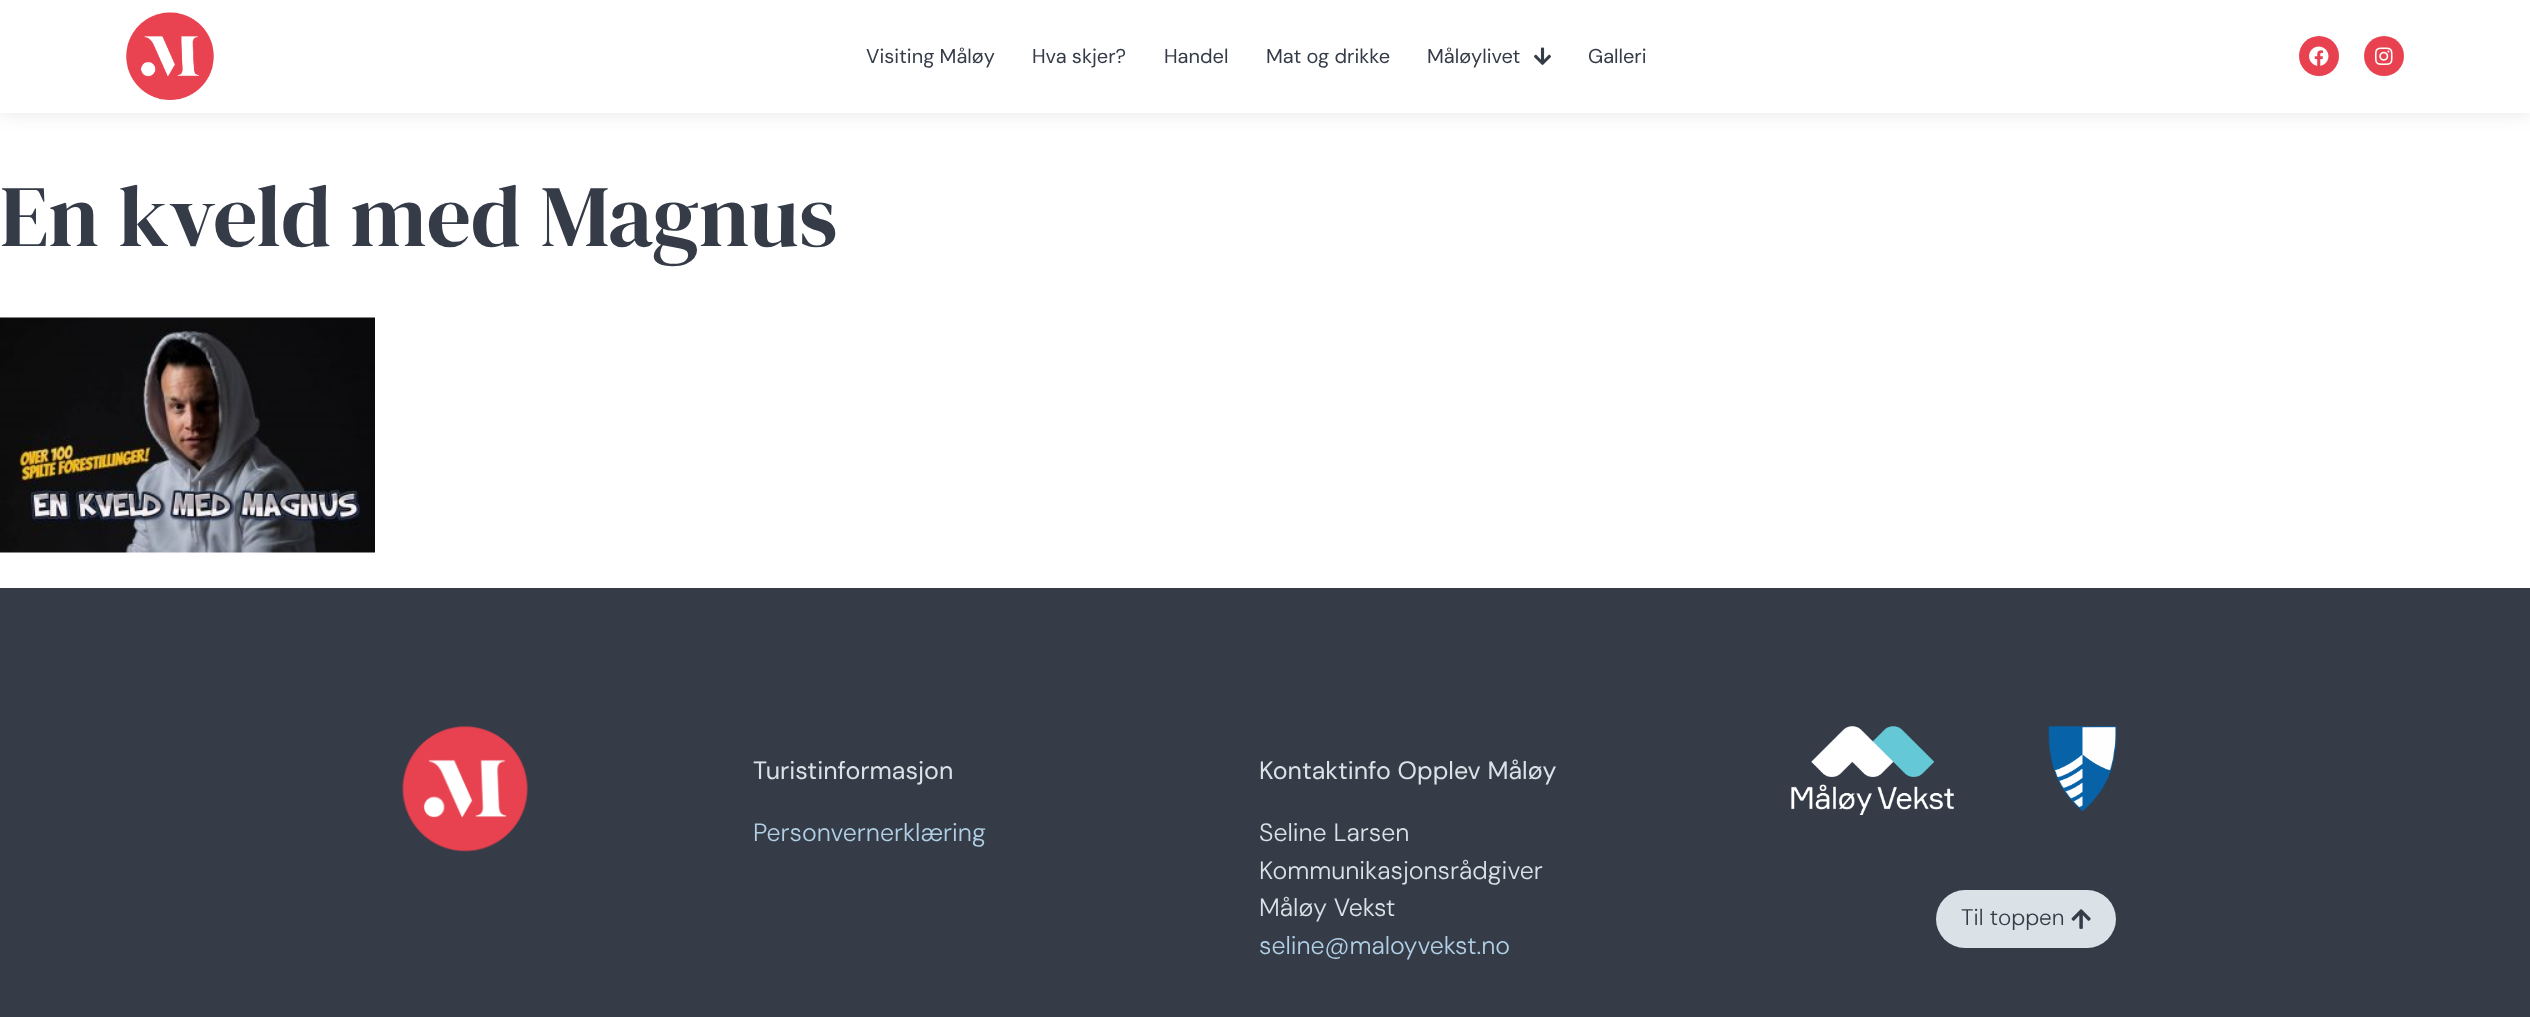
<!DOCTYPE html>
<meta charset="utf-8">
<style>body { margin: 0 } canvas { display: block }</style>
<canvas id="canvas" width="2530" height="1017"></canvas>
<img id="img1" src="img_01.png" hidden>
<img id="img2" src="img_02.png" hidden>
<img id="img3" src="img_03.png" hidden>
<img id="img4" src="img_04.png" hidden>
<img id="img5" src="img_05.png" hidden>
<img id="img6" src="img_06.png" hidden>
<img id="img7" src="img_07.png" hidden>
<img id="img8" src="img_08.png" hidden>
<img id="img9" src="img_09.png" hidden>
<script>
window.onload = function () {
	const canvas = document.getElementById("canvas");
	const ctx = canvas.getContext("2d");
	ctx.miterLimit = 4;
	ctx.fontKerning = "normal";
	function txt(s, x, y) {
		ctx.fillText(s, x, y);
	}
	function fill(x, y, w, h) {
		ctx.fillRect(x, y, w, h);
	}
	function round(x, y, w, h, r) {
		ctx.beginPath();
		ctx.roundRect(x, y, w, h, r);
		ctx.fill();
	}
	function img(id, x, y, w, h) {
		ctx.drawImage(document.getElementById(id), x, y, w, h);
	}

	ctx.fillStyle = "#FFFFFF";
	fill(0, 0, 2530, 1017);
	ctx.fillStyle = "rgba(0, 0, 0, 0.1)";
	ctx.filter = "blur(9.5px)";
	ctx.beginPath();
	ctx.rect(0, 0, 2530, 113);
	ctx.fill();
	ctx.filter = "none";
	ctx.fillStyle = "#FFFFFF";
	fill(0, 0, 2530, 113);
	img("img1", 126, 12, 88, 88);
	img("img2", 1534, 47, 17, 18);
	ctx.fillStyle = "#E84250";
	ctx.beginPath();
	ctx.arc(2319, 56, 20, 0, Math.PI * 2);
	ctx.fill();
	img("img3", 2309, 46, 20, 20);
	ctx.beginPath();
	ctx.arc(2384, 56, 20, 0, Math.PI * 2);
	ctx.fill();
	img("img4", 2375, 47, 18, 18);
	img("img5", 0, 317, 375, 236);
	ctx.fillStyle = "#353C48";
	fill(0, 588, 2530, 429);
	img("img6", 402, 726, 126, 126);
	img("img7", 1791, 726, 163, 89);
	img("img8", 2048, 726, 69, 86);
	ctx.fillStyle = "#DAE2E7";
	round(1936, 890, 180, 58, 29);
	img("img9", 2071, 909, 20, 20);
	ctx.font = "20px DM Sans";
	ctx.fillStyle = "#353C48";
	txt("Visiting Måløy", 866, 63);
	txt("Hva skjer?", 1032, 63);
	txt("Handel", 1164, 63);
	txt("Mat og drikke", 1266, 63);
	txt("Måløylivet", 1427, 63);
	txt("Galleri", 1588, 63);
	ctx.font = "87.5px DM Serif Display";
	txt("En kveld med Magnus", 0, 246);
	ctx.font = "25px DM Sans";
	ctx.fillStyle = "#DAE2E7";
	txt("Turistinformasjon", 753, 779);
	ctx.font = "300 25px DM Sans";
	ctx.fillStyle = "#B1CFE5";
	txt("Personvernerklæring", 753, 841);
	ctx.font = "25px DM Sans";
	ctx.fillStyle = "#DAE2E7";
	txt("Kontaktinfo Opplev Måløy", 1259, 779);
	ctx.font = "300 25px DM Sans";
	txt("Seline Larsen", 1259, 841);
	txt("Kommunikasjonsrådgiver", 1259, 879);
	txt("Måløy Vekst", 1259, 916);
	ctx.fillStyle = "#B1CFE5";
	txt("seline@maloyvekst.no", 1259, 954);
	ctx.font = "300 22.5px DM Sans";
	ctx.fillStyle = "#353C48";
	txt("Til toppen", 1961, 925);
};
</script>
